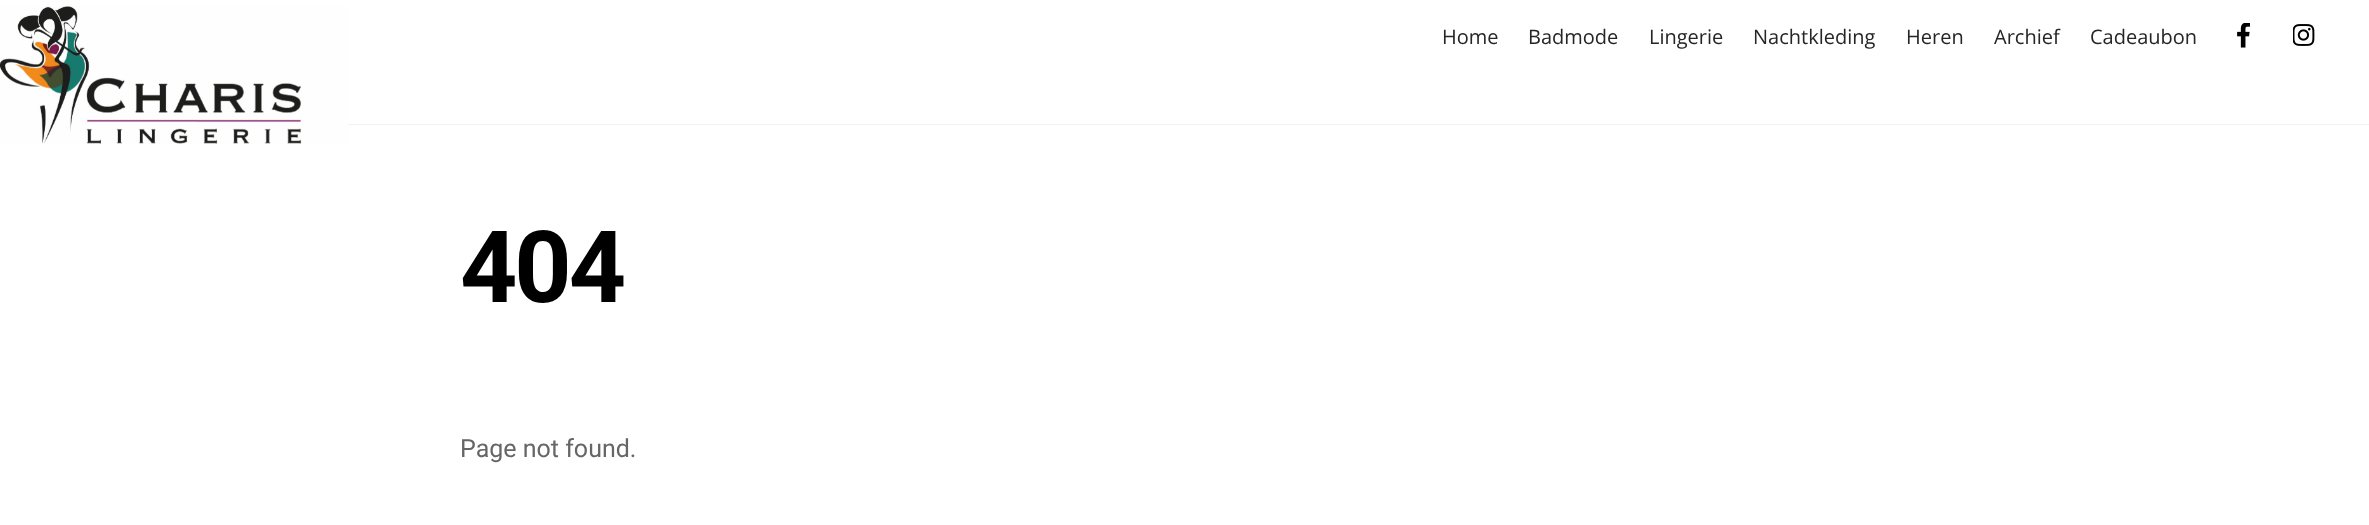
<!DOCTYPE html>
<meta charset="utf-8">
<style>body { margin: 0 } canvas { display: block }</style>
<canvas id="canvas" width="2369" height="525"></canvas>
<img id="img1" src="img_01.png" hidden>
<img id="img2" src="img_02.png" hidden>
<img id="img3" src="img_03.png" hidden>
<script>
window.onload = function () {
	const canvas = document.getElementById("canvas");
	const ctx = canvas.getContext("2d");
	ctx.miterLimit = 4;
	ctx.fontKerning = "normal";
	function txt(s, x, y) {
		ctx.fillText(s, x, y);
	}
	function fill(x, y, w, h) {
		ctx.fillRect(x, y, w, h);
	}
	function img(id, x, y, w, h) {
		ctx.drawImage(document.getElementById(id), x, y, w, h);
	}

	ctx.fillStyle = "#FFFFFF";
	fill(0, 0, 2369, 525);
	ctx.fillStyle = "#F2F2F2";
	fill(347, 124, 2022, 1);
	img("img1", 0, 6, 348, 138);
	img("img2", 2237, 23, 13, 25);
	img("img3", 2293, 24, 22, 22);
	ctx.font = "20px Open Sans";
	ctx.fillStyle = "#262626";
	txt("Home", 1442, 44);
	txt("Badmode", 1528, 44);
	txt("Lingerie", 1649, 44);
	txt("Nachtkleding", 1753, 44);
	txt("Heren", 1906, 44);
	txt("Archief", 1994, 44);
	txt("Cadeaubon", 2090, 44);
	ctx.letterSpacing = "-3px";
	ctx.font = "bold 100px Roboto";
	ctx.fillStyle = "#000000";
	txt("404", 460, 302);
	ctx.letterSpacing = "0px";
	ctx.font = "25px Roboto";
	ctx.fillStyle = "#666666";
	txt("Page not found.", 460, 457);
};
</script>
